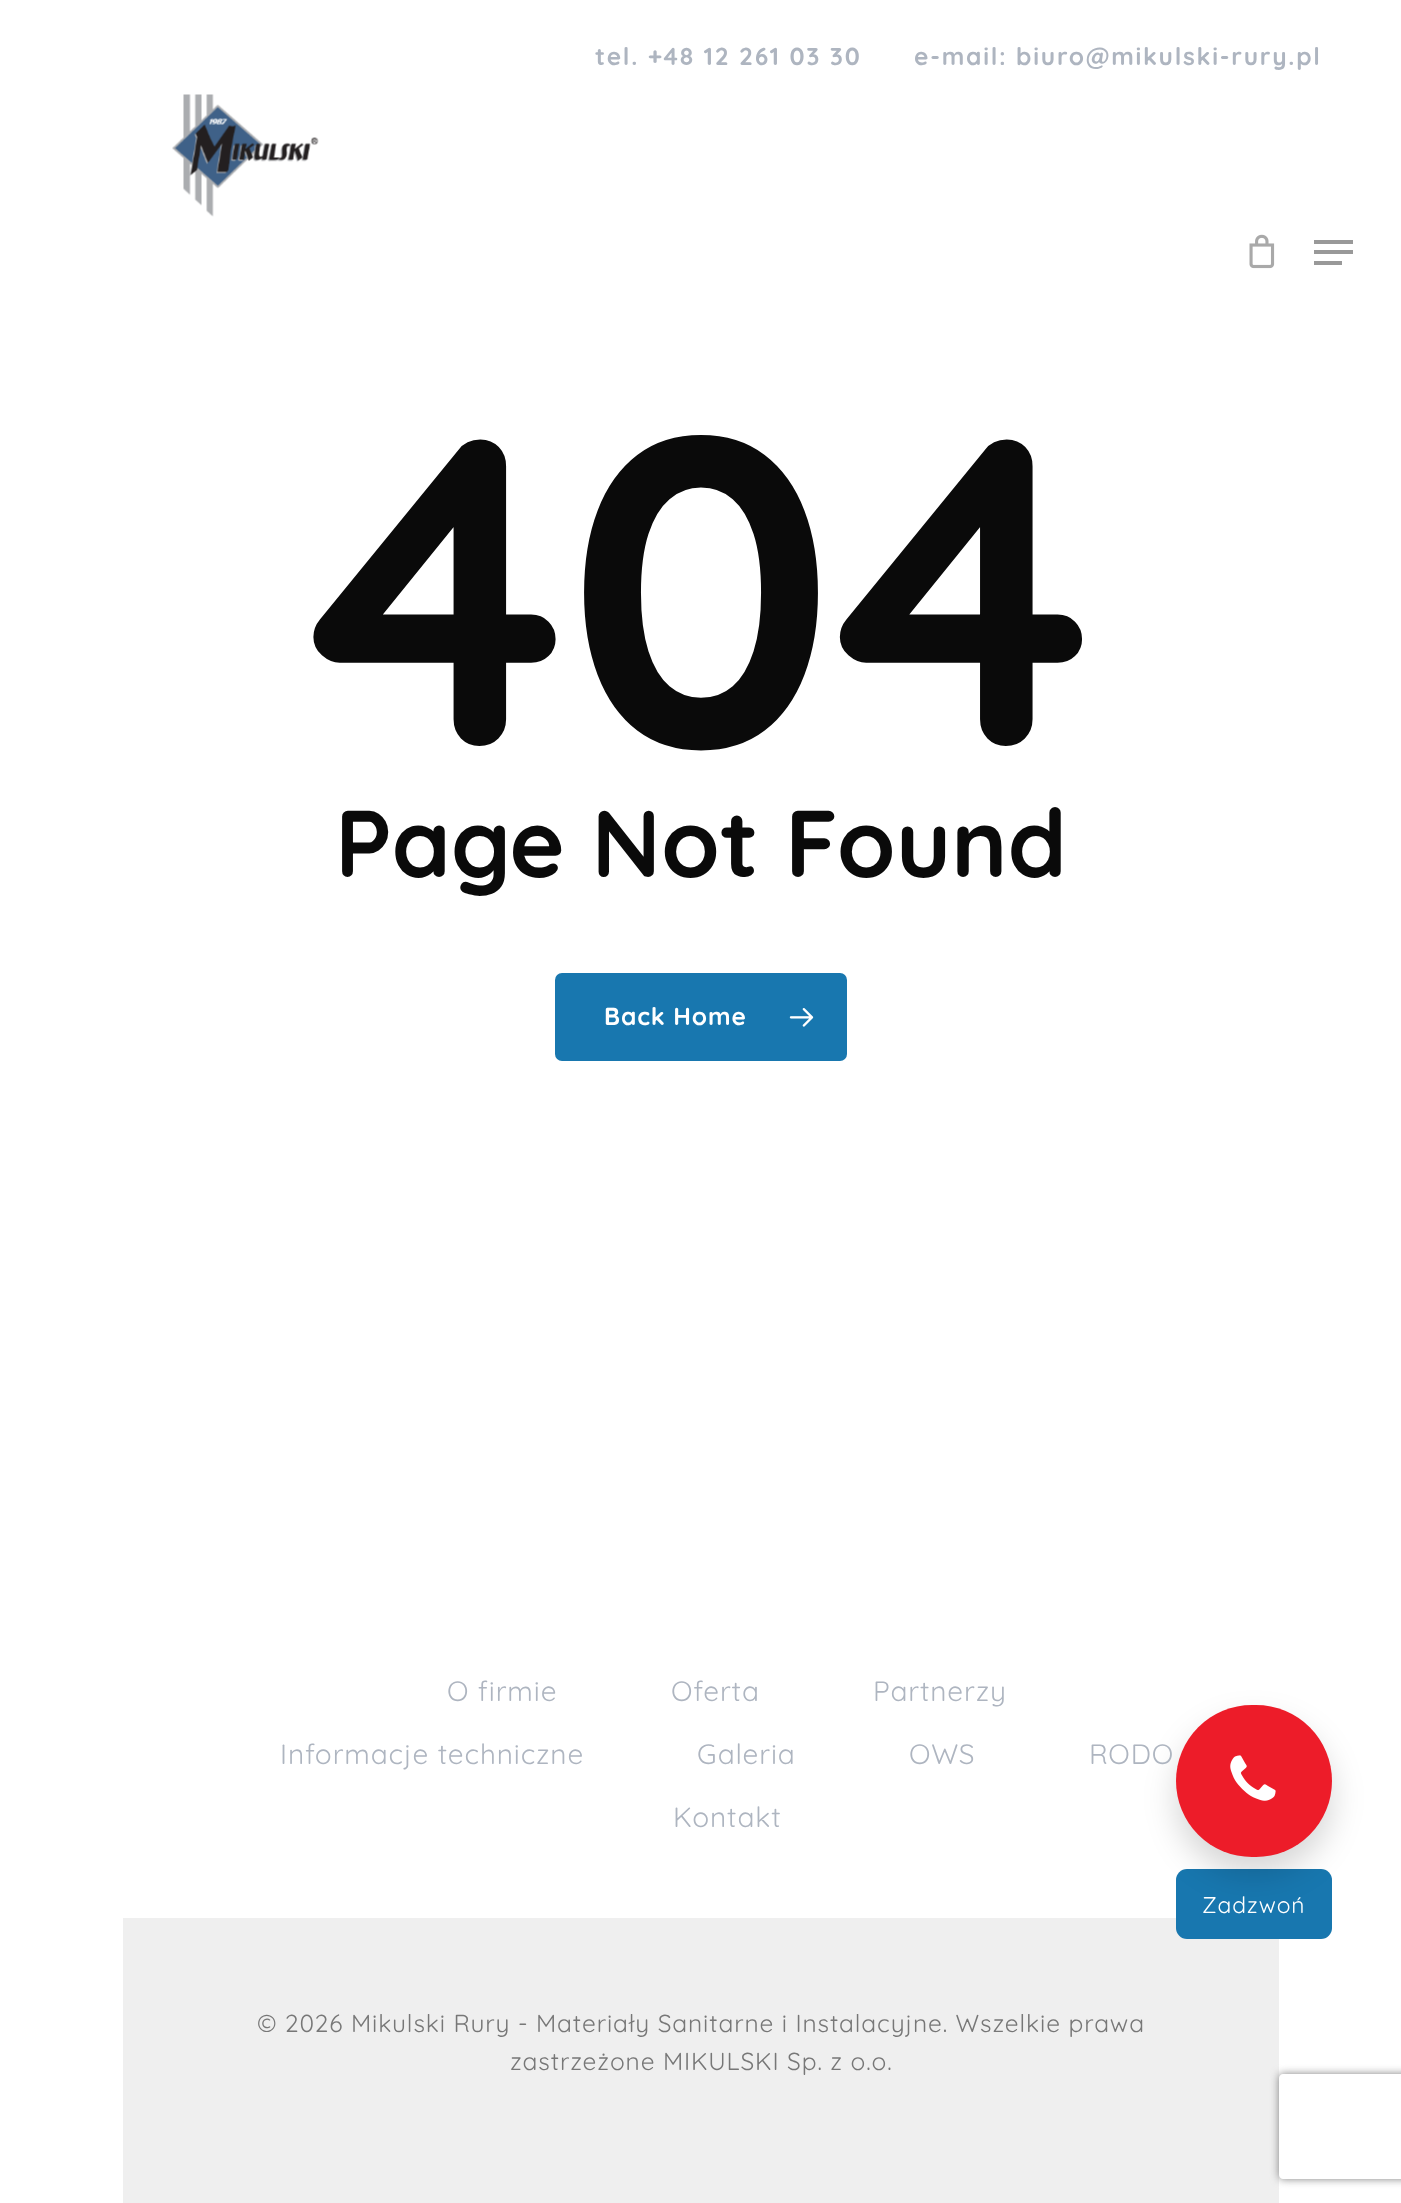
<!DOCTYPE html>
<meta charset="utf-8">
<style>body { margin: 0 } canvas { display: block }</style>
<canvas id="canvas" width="1401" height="2203"></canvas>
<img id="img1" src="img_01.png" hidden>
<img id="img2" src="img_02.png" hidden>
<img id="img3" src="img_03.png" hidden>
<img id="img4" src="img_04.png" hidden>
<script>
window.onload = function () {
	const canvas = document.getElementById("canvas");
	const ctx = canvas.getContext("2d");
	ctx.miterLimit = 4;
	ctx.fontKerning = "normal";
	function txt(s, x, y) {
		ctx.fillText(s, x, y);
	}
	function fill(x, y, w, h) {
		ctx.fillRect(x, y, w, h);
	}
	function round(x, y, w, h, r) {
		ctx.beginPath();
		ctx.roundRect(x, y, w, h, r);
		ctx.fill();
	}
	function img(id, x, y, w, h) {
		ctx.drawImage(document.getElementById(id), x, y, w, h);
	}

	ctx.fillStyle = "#FFFFFF";
	fill(0, 0, 1401, 2203);
	img("img1", 172, 94, 147, 123);
	img("img2", 1249, 234, 26, 35);
	ctx.fillStyle = "#999999";
	fill(1314, 240, 39, 4);
	fill(1314, 261, 28, 4);
	fill(1314, 250, 39, 4);
	ctx.fillStyle = "#1877AF";
	round(555, 973, 292, 88, 7);
	img("img3", 789, 1008, 25, 19);
	ctx.fillStyle = "#EFEFEF";
	fill(123, 1918, 1156, 285);
	ctx.fillStyle = "#1877AF";
	round(1176, 1869, 156, 70, 11);
	ctx.fillStyle = "rgba(0, 0, 0, 0.16)";
	ctx.filter = "blur(16px)";
	ctx.beginPath();
	ctx.roundRect(1176, 1722, 156, 152, 76);
	ctx.fill();
	ctx.filter = "none";
	ctx.fillStyle = "#ED1C29";
	round(1176, 1705, 156, 152, 76);
	img("img4", 1230, 1755, 46, 46);
	ctx.save();
	ctx.beginPath();
	ctx.moveTo(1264, 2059);
	ctx.lineTo(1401, 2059);
	ctx.lineTo(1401, 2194);
	ctx.lineTo(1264, 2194);
	ctx.closePath();
	ctx.moveTo(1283, 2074);
	ctx.lineTo(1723, 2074);
	ctx.bezierCurveTo(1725, 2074, 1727, 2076, 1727, 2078);
	ctx.lineTo(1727, 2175);
	ctx.bezierCurveTo(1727, 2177, 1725, 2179, 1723, 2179);
	ctx.lineTo(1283, 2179);
	ctx.bezierCurveTo(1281, 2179, 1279, 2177, 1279, 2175);
	ctx.lineTo(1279, 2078);
	ctx.bezierCurveTo(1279, 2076, 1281, 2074, 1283, 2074);
	ctx.closePath();
	ctx.clip("evenodd");
	ctx.fillStyle = "#808080";
	ctx.filter = "blur(4.5px)";
	ctx.beginPath();
	ctx.roundRect(1279, 2074, 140, 105, 4);
	ctx.fill();
	ctx.filter = "none";
	ctx.restore();
	ctx.letterSpacing = "1.75px";
	ctx.font = "bold 24.5px Quicksand";
	ctx.fillStyle = "#AEB5C0";
	txt("tel. +48 12 261 03 30", 595, 65);
	txt("e-mail: biuro@mikulski-rury.pl", 914, 65);
	ctx.letterSpacing = "0px";
	ctx.font = "bold 438px Quicksand";
	ctx.fillStyle = "#0A0A0A";
	txt("404", 309, 746);
	ctx.font = "bold 94.5px Quicksand";
	txt("Page Not Found", 335, 877);
	ctx.letterSpacing = "0.88px";
	ctx.font = "bold 24.5px Quicksand";
	ctx.fillStyle = "#FFFFFF";
	txt("Back Home", 604, 1025);
	ctx.font = "28px Quicksand";
	ctx.fillStyle = "#AEB5C0";
	txt("O firmie", 447, 1701);
	txt("Oferta", 671, 1701);
	txt("Partnerzy", 873, 1701);
	txt("Informacje techniczne", 280, 1764);
	txt("Galeria", 697, 1764);
	txt("OWS", 909, 1764);
	txt("RODO", 1089, 1764);
	txt("Kontakt", 673, 1827);
	ctx.font = "24.5px Quicksand";
	ctx.fillStyle = "#777777";
	txt("© 2026 Mikulski Rury - Materiały Sanitarne i Instalacyjne. Wszelkie prawa", 257, 2032);
	txt("zastrzeżone MIKULSKI Sp. z o.o.", 510, 2070);
	ctx.font = "22.75px Quicksand";
	ctx.fillStyle = "#FFFFFF";
	txt("Zadzwoń", 1202, 1913);
};
</script>
